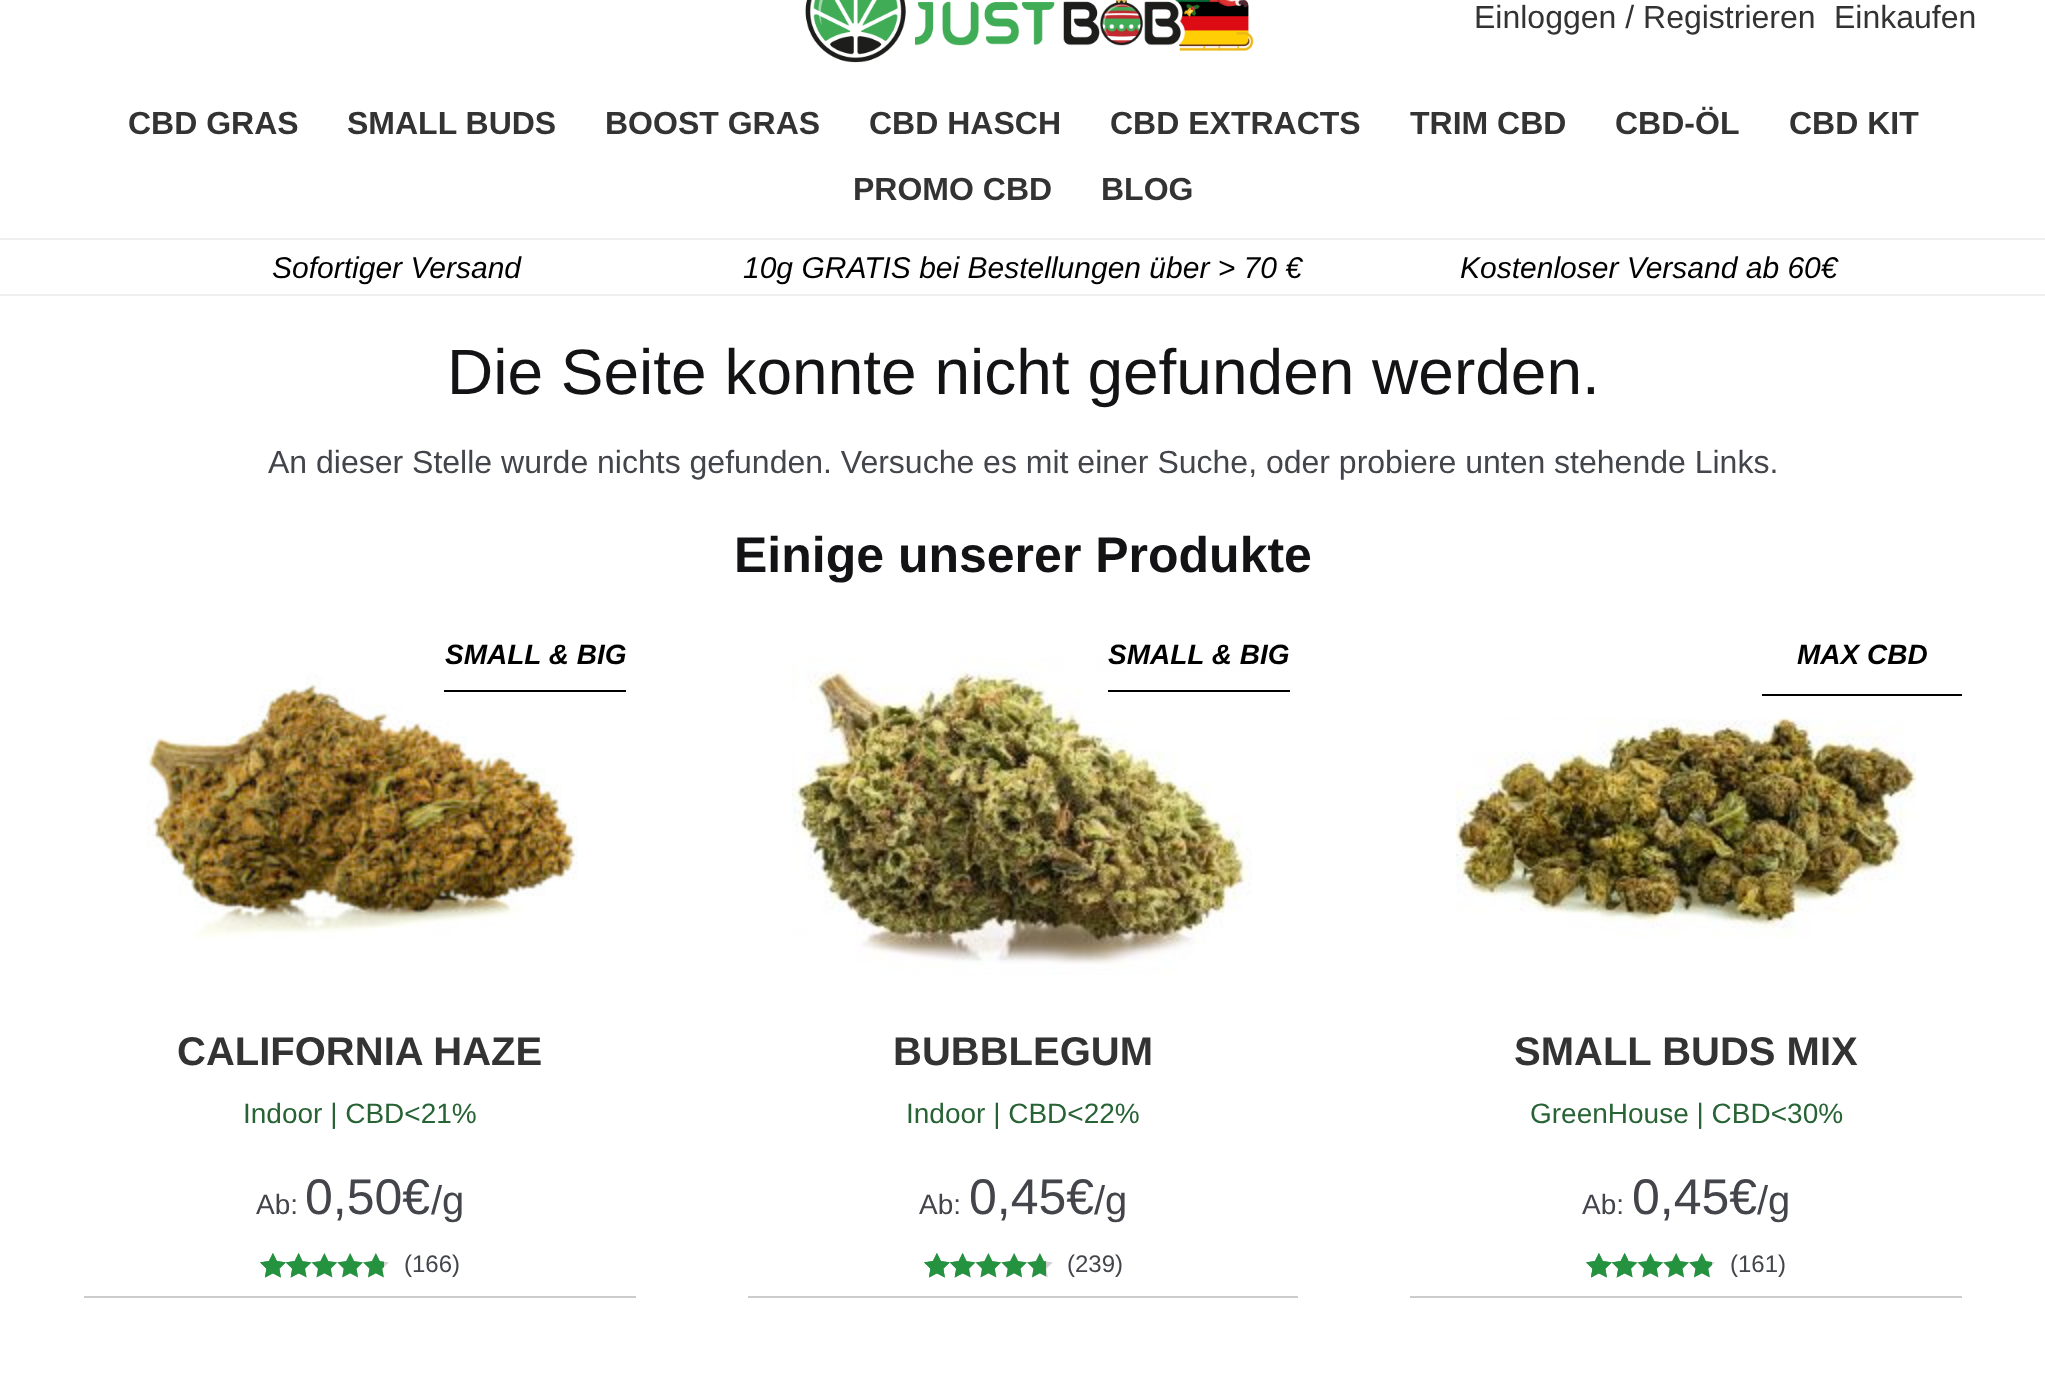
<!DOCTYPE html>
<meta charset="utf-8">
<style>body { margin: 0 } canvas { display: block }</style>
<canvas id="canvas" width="2045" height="1382"></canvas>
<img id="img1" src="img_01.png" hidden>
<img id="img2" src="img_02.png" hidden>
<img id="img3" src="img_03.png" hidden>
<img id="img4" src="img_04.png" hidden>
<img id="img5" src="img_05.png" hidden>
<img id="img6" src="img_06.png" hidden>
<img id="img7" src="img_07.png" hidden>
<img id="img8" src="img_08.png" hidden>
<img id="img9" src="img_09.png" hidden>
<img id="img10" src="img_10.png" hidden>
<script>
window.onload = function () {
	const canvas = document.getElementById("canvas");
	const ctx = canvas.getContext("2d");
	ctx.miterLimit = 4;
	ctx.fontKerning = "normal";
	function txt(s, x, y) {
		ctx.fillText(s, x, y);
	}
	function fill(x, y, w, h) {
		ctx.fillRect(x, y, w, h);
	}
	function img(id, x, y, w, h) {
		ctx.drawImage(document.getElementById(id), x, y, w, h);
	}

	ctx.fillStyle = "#FFFFFF";
	fill(0, 0, 2045, 1382);
	ctx.fillStyle = "#F0F0F0";
	fill(0, 238, 2045, 2);
	img("img1", 805, 0, 449, 63);
	fill(0, 294, 2045, 2);
	img("img2", 146, 673, 432, 266);
	ctx.fillStyle = "#000000";
	fill(444, 690, 182, 2);
	img("img3", 260, 1253, 129, 25);
	img("img4", 260, 1253, 124, 25);
	img("img5", 260, 1253, 40, 25);
	ctx.fillStyle = "#CCCCCC";
	fill(84, 1296, 552, 2);
	img("img6", 792, 657, 460, 318);
	ctx.fillStyle = "#000000";
	fill(1108, 690, 182, 2);
	img("img3", 924, 1253, 129, 25);
	img("img7", 924, 1253, 122, 25);
	img("img5", 924, 1253, 40, 25);
	ctx.fillStyle = "#CCCCCC";
	fill(748, 1296, 550, 2);
	ctx.fillStyle = "#000000";
	fill(1762, 694, 200, 2);
	img("img8", 1456, 717, 460, 221);
	img("img3", 1586, 1253, 129, 25);
	img("img9", 1586, 1253, 126, 25);
	img("img10", 1586, 1253, 42, 25);
	ctx.fillStyle = "#CCCCCC";
	fill(1410, 1296, 552, 2);
	ctx.font = "32px Liberation Sans";
	ctx.fillStyle = "#333333";
	txt("Einloggen / Registrieren", 1474, 28);
	txt("Einkaufen", 1834, 28);
	ctx.font = "bold 32px Liberation Sans";
	txt("CBD GRAS", 128, 134);
	txt("SMALL BUDS", 347, 134);
	txt("BOOST GRAS", 605, 134);
	txt("CBD HASCH", 869, 134);
	txt("CBD EXTRACTS", 1110, 134);
	txt("TRIM CBD", 1410, 134);
	txt("CBD-ÖL", 1615, 134);
	txt("CBD KIT", 1789, 134);
	txt("PROMO CBD", 853, 200);
	txt("BLOG", 1101, 200);
	ctx.font = "italic 30px Liberation Sans";
	ctx.fillStyle = "#000000";
	txt("Sofortiger Versand", 272, 278);
	txt("10g GRATIS bei Bestellungen über > 70 €", 743, 278);
	txt("Kostenloser Versand ab 60€", 1460, 278);
	ctx.font = "64px Liberation Sans";
	ctx.fillStyle = "#131315";
	txt("Die Seite konnte nicht gefunden werden.", 447, 394);
	ctx.font = "32px Liberation Sans";
	ctx.fillStyle = "#43454B";
	txt("An dieser Stelle wurde nichts gefunden. Versuche es mit einer Suche, oder probiere unten stehende Links.", 268, 473);
	ctx.font = "bold 50px Liberation Sans";
	ctx.fillStyle = "#131315";
	txt("Einige unserer Produkte", 734, 572);
	ctx.font = "italic bold 28px Liberation Sans";
	ctx.fillStyle = "#000000";
	txt("SMALL & BIG", 445, 664);
	ctx.font = "bold 40px Liberation Sans";
	ctx.fillStyle = "#333333";
	txt("CALIFORNIA HAZE", 177, 1065);
	ctx.font = "28px Liberation Sans";
	ctx.fillStyle = "#276334";
	txt("Indoor | CBD<21%", 243, 1123);
	ctx.fillStyle = "#43454B";
	txt("Ab:", 256, 1214);
	ctx.font = "50px Liberation Sans";
	txt("0,50€", 305, 1214);
	ctx.font = "40px Liberation Sans";
	txt("/g", 431, 1214);
	ctx.font = "24px Liberation Sans";
	txt("(166)", 404, 1272);
	ctx.font = "italic bold 28px Liberation Sans";
	ctx.fillStyle = "#000000";
	txt("SMALL & BIG", 1108, 664);
	ctx.font = "bold 40px Liberation Sans";
	ctx.fillStyle = "#333333";
	txt("BUBBLEGUM", 893, 1065);
	ctx.font = "28px Liberation Sans";
	ctx.fillStyle = "#276334";
	txt("Indoor | CBD<22%", 906, 1123);
	ctx.fillStyle = "#43454B";
	txt("Ab:", 919, 1214);
	ctx.font = "50px Liberation Sans";
	txt("0,45€", 969, 1214);
	ctx.font = "40px Liberation Sans";
	txt("/g", 1094, 1214);
	ctx.font = "24px Liberation Sans";
	txt("(239)", 1067, 1272);
	ctx.font = "italic bold 28px Liberation Sans";
	ctx.fillStyle = "#000000";
	txt("MAX CBD", 1797, 664);
	ctx.font = "bold 40px Liberation Sans";
	ctx.fillStyle = "#333333";
	txt("SMALL BUDS MIX", 1514, 1065);
	ctx.font = "28px Liberation Sans";
	ctx.fillStyle = "#276334";
	txt("GreenHouse | CBD<30%", 1530, 1123);
	ctx.fillStyle = "#43454B";
	txt("Ab:", 1582, 1214);
	ctx.font = "50px Liberation Sans";
	txt("0,45€", 1632, 1214);
	ctx.font = "40px Liberation Sans";
	txt("/g", 1757, 1214);
	ctx.font = "24px Liberation Sans";
	txt("(161)", 1730, 1272);
};
</script>
